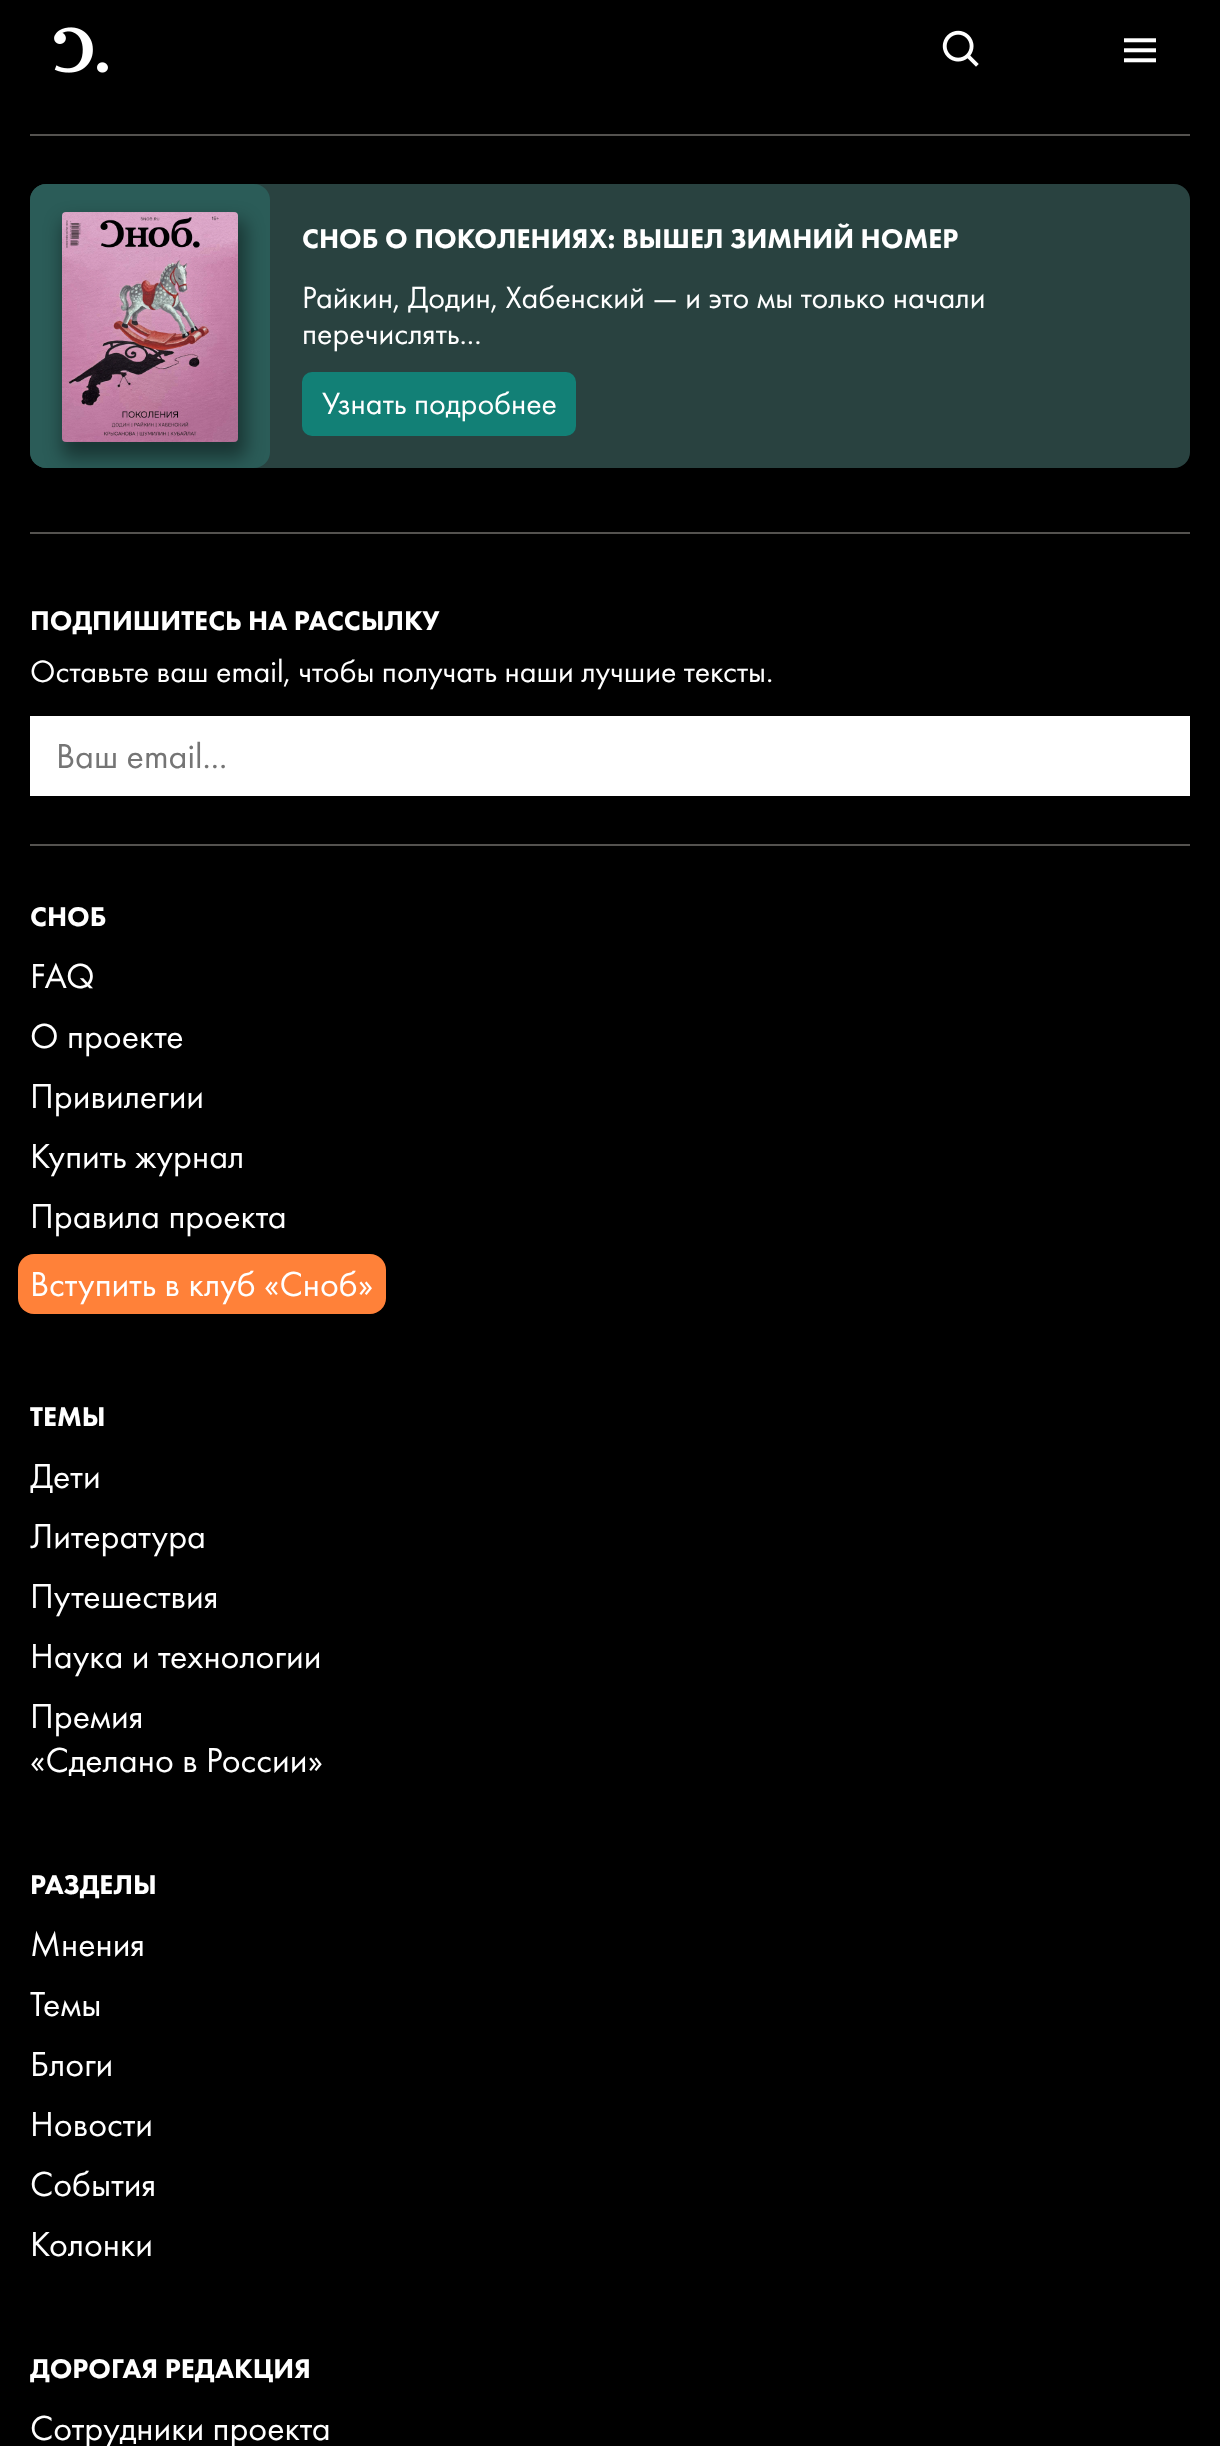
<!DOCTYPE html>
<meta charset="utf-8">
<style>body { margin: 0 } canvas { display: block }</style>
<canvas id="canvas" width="1220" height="2446"></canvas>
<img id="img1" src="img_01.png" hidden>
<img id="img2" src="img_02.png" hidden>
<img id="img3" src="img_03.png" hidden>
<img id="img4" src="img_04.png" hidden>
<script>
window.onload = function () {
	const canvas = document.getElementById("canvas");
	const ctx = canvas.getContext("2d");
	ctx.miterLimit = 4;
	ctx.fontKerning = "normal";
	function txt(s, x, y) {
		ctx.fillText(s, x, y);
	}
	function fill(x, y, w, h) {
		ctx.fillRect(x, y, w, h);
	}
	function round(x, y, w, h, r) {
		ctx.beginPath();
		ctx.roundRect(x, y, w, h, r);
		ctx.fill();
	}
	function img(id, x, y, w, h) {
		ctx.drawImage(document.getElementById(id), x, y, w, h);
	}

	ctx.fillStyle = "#000000";
	fill(0, 0, 1220, 2446);
	img("img1", 54, 27, 54, 46);
	img("img2", 942, 30, 37, 37);
	img("img3", 1124, 38, 32, 25);
	ctx.fillStyle = "#54524F";
	fill(30, 134, 1160, 2);
	fill(30, 844, 1160, 2);
	ctx.fillStyle = "#294240";
	round(30, 184, 1160, 284, 16);
	ctx.fillStyle = "#2B5C58";
	round(30, 184, 240, 284, 16);
	ctx.fillStyle = "rgba(0, 0, 0, 0.41)";
	ctx.filter = "blur(9px)";
	ctx.beginPath();
	ctx.roundRect(62, 220, 184, 238, 8);
	ctx.fill();
	ctx.filter = "none";
	img("img4", 62, 212, 176, 230);
	ctx.fillStyle = "#128076";
	ctx.beginPath();
	ctx.roundRect(304, 374, 270, 60, 8);
	ctx.fill();
	ctx.strokeStyle = "#128076";
	ctx.lineWidth = 4;
	ctx.stroke();
	ctx.fillStyle = "#54524F";
	fill(30, 532, 1160, 2);
	ctx.fillStyle = "#FFFFFF";
	fill(30, 716, 1160, 80);
	ctx.fillStyle = "#FF8139";
	round(18, 1254, 368, 60, 16);
	ctx.font = "900 28px Futura PT";
	ctx.fillStyle = "#FFFFFF";
	txt("СНОБ О ПОКОЛЕНИЯХ: ВЫШЕЛ ЗИМНИЙ НОМЕР", 302, 248);
	ctx.font = "32px Futura PT";
	txt("Райкин, Додин, Хабенский — и это мы только начали", 302, 308);
	txt("перечислять...", 302, 344);
	txt("Узнать подробнее", 322, 414);
	ctx.font = "900 28px Futura PT";
	txt("ПОДПИШИТЕСЬ НА РАССЫЛКУ", 30, 630);
	ctx.font = "32px Futura PT";
	txt("Оставьте ваш email, чтобы получать наши лучшие тексты.", 30, 682);
	ctx.font = "36px Futura PT";
	ctx.fillStyle = "#757575";
	txt("Ваш email...", 56, 768);
	ctx.font = "900 28px Futura PT";
	ctx.fillStyle = "#FFFFFF";
	txt("СНОБ", 30, 926);
	ctx.font = "36px Futura PT";
	txt("FAQ", 30, 988);
	txt("О проекте", 30, 1048);
	txt("Привилегии", 30, 1108);
	txt("Купить журнал", 30, 1168);
	txt("Правила проекта", 30, 1228);
	txt("Вступить в клуб «Сноб»", 30, 1296);
	ctx.font = "900 28px Futura PT";
	txt("ТЕМЫ", 30, 1426);
	ctx.font = "36px Futura PT";
	txt("Дети", 30, 1488);
	txt("Литература", 30, 1548);
	txt("Путешествия", 30, 1608);
	txt("Наука и технологии", 30, 1668);
	txt("Премия", 30, 1728);
	txt("«Сделано в России»", 30, 1772);
	ctx.font = "900 28px Futura PT";
	txt("РАЗДЕЛЫ", 30, 1894);
	ctx.font = "36px Futura PT";
	txt("Мнения", 30, 1956);
	txt("Темы", 30, 2016);
	txt("Блоги", 30, 2076);
	txt("Новости", 30, 2136);
	txt("События", 30, 2196);
	txt("Колонки", 30, 2256);
	ctx.font = "900 28px Futura PT";
	txt("ДОРОГАЯ РЕДАКЦИЯ", 30, 2378);
	ctx.font = "36px Futura PT";
	txt("Сотрудники проекта", 30, 2440);
};
</script>
